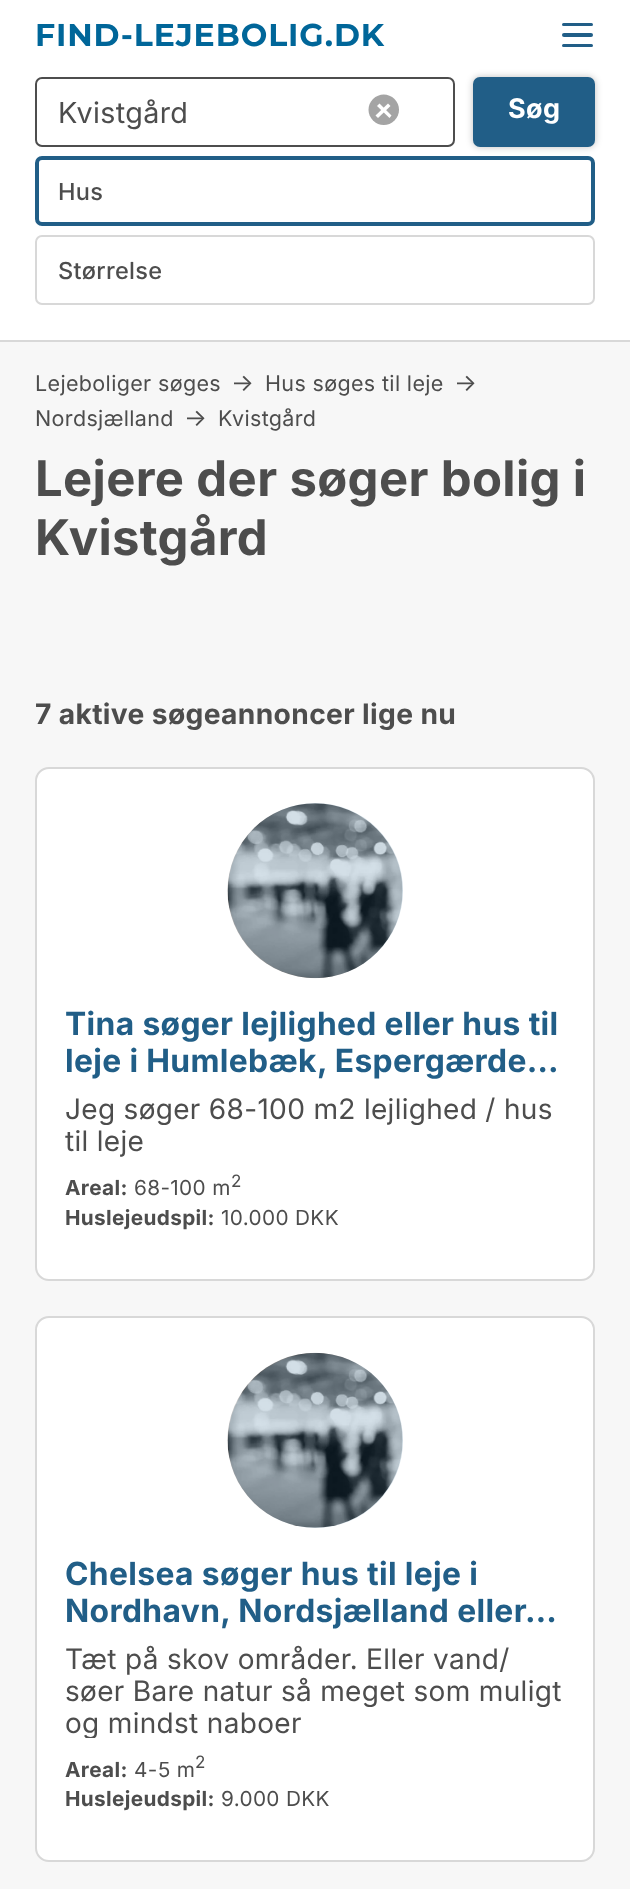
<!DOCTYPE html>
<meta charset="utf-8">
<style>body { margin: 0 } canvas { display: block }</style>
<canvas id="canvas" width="630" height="1889"></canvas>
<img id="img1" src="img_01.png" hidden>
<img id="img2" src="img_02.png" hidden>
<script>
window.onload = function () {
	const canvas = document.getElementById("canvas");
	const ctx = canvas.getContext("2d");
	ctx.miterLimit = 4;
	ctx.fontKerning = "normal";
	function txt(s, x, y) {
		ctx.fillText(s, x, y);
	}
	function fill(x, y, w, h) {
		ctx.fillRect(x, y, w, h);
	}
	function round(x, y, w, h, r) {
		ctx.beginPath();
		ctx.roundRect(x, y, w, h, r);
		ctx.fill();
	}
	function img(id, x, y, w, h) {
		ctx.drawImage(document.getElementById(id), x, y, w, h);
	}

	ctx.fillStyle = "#FFFFFF";
	fill(0, 0, 630, 1889);
	ctx.fillStyle = "#215E87";
	round(562, 23, 31, 3, 1.5);
	round(562, 33, 31, 4, 2);
	round(562, 44, 31, 3, 1.5);
	ctx.fillStyle = "#F7F7F7";
	fill(0, 342, 630, 1547);
	ctx.fillStyle = "#D8D8D8";
	fill(0, 340, 630, 2);
	ctx.beginPath();
	ctx.roundRect(36, 78, 418, 68, 6);
	ctx.strokeStyle = "#4D4D4D";
	ctx.lineWidth = 2;
	ctx.stroke();
	ctx.fillStyle = "#A4A4A4";
	ctx.beginPath();
	ctx.moveTo(394.5, 99);
	ctx.bezierCurveTo(400.5, 105, 400.5, 114.5, 394.5, 120.5);
	ctx.bezierCurveTo(388.5, 126.5, 379, 126.5, 373, 120.5);
	ctx.bezierCurveTo(367, 114.5, 367, 105, 373, 99);
	ctx.bezierCurveTo(379, 93, 388.5, 93, 394.5, 99);
	ctx.closePath();
	ctx.fill();
	ctx.fillStyle = "#FFFFFF";
	ctx.beginPath();
	ctx.moveTo(379.5, 103.5);
	ctx.lineTo(391.5, 115.5);
	ctx.lineTo(389.5, 118);
	ctx.lineTo(377, 106);
	ctx.closePath();
	ctx.fill();
	ctx.beginPath();
	ctx.moveTo(388, 103.5);
	ctx.lineTo(390.5, 106);
	ctx.lineTo(378, 118);
	ctx.lineTo(375.5, 115.5);
	ctx.closePath();
	ctx.fill();
	ctx.fillStyle = "rgba(0, 0, 0, 0.25)";
	ctx.filter = "blur(3.5px)";
	ctx.beginPath();
	ctx.roundRect(473, 77, 122, 70, 7);
	ctx.fill();
	ctx.filter = "none";
	ctx.fillStyle = "#215E87";
	round(473, 77, 122, 70, 7);
	ctx.beginPath();
	ctx.roundRect(37, 158, 556, 66, 5);
	ctx.strokeStyle = "#215E87";
	ctx.lineWidth = 4;
	ctx.stroke();
	ctx.beginPath();
	ctx.roundRect(36, 236, 558, 68, 6);
	ctx.strokeStyle = "#D8D8D8";
	ctx.lineWidth = 2;
	ctx.stroke();
	ctx.fillStyle = "#FFFFFF";
	ctx.beginPath();
	ctx.roundRect(36, 768, 558, 512, 13);
	ctx.fill();
	ctx.stroke();
	img("img1", 227, 803, 176, 176);
	ctx.fillStyle = "rgba(33, 94, 135, 0.2)";
	ctx.beginPath();
	ctx.arc(315.5, 890.5, 87.5, 0, Math.PI * 2);
	ctx.fill();
	ctx.fillStyle = "#FFFFFF";
	ctx.beginPath();
	ctx.roundRect(36, 1317, 558, 544, 13);
	ctx.fill();
	ctx.stroke();
	img("img2", 227, 1352, 176, 176);
	ctx.fillStyle = "rgba(33, 94, 135, 0.2)";
	ctx.beginPath();
	ctx.arc(315.5, 1440.5, 87.5, 0, Math.PI * 2);
	ctx.fill();
	ctx.letterSpacing = "0.9px";
	ctx.font = "bold 31.5px Montserrat";
	ctx.fillStyle = "#006699";
	txt("FIND-LEJEBOLIG.DK", 35, 46);
	ctx.letterSpacing = "0.35px";
	ctx.font = "29px 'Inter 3'";
	ctx.fillStyle = "#4D4D4D";
	txt("Kvistgård", 58, 123);
	ctx.font = "bold 27px Inter";
	ctx.fillStyle = "#FFFFFF";
	txt("Søg", 508, 118);
	ctx.font = "500 23.5px Inter";
	ctx.fillStyle = "#4D4D4D";
	txt("Hus", 58, 200);
	txt("Størrelse", 58, 279);
	ctx.font = "21.5px Inter";
	txt("Lejeboliger søges", 35, 391);
	ctx.font = "24px Inter";
	txt("→", 231, 391);
	ctx.font = "21.5px Inter";
	txt("Hus søges til leje", 265, 391);
	ctx.font = "24px Inter";
	txt("→", 454, 391);
	ctx.font = "21.5px Inter";
	txt("Nordsjælland", 35, 426);
	ctx.font = "24px Inter";
	txt("→", 184, 426);
	ctx.font = "21.5px Inter";
	txt("Kvistgård", 218, 426);
	ctx.font = "bold 49px Inter";
	txt("Lejere der søger bolig i", 35, 496);
	txt("Kvistgård", 35, 555);
	ctx.font = "bold 28.2px Inter";
	txt("7 aktive søgeannoncer lige nu", 35, 724);
	ctx.font = "bold 31.8px Inter";
	ctx.fillStyle = "#215E87";
	txt("Tina søger lejlighed eller hus til", 65, 1035);
	txt("leje i Humlebæk, Espergærde…", 65, 1072);
	ctx.font = "28.2px 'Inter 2'";
	ctx.fillStyle = "#4D4D4D";
	txt("Jeg søger 68-100 m2 lejlighed / hus", 65, 1119);
	txt("til leje", 65, 1151);
	ctx.font = "bold 20.75px Inter";
	txt("Areal:", 65, 1195);
	ctx.font = "20.75px Inter";
	txt("68-100 m", 134, 1195);
	ctx.font = "17px Inter";
	txt("2", 231, 1187);
	ctx.font = "bold 20.75px Inter";
	txt("Huslejeudspil:", 65, 1225);
	ctx.font = "20.75px Inter";
	txt("10.000 DKK", 221, 1225);
	ctx.font = "bold 31.8px Inter";
	ctx.fillStyle = "#215E87";
	txt("Chelsea søger hus til leje i", 65, 1585);
	txt("Nordhavn, Nordsjælland eller…", 65, 1622);
	ctx.font = "28.2px 'Inter 2'";
	ctx.fillStyle = "#4D4D4D";
	txt("Tæt på skov områder. Eller vand/", 65, 1669);
	txt("søer Bare natur så meget som muligt", 65, 1701);
	ctx.save();
	ctx.beginPath();
	ctx.rect(65, 1643, 500, 95);
	ctx.clip();
	txt("og mindst naboer", 65, 1733);
	ctx.restore();
	ctx.font = "bold 20.75px Inter";
	txt("Areal:", 65, 1777);
	ctx.font = "20.75px Inter";
	txt("4-5 m", 134, 1777);
	ctx.font = "17px Inter";
	txt("2", 195, 1768);
	ctx.font = "bold 20.75px Inter";
	txt("Huslejeudspil:", 65, 1806);
	ctx.font = "20.75px Inter";
	txt("9.000 DKK", 221, 1806);
};
</script>
